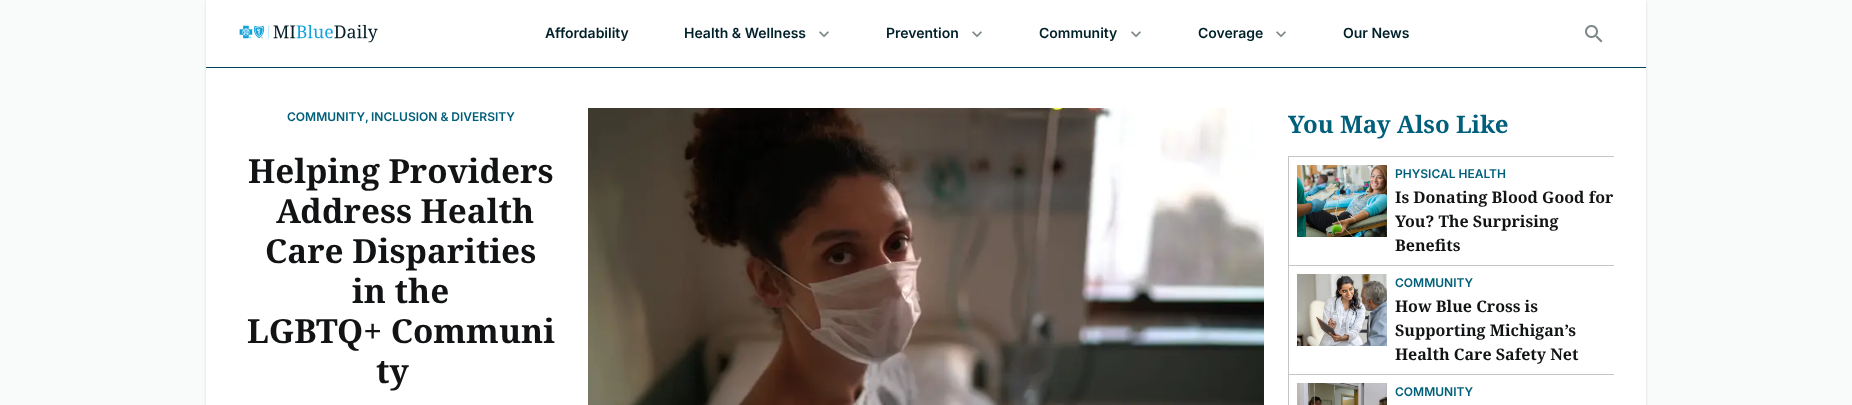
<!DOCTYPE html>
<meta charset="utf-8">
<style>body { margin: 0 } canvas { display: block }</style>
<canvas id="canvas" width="1852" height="405"></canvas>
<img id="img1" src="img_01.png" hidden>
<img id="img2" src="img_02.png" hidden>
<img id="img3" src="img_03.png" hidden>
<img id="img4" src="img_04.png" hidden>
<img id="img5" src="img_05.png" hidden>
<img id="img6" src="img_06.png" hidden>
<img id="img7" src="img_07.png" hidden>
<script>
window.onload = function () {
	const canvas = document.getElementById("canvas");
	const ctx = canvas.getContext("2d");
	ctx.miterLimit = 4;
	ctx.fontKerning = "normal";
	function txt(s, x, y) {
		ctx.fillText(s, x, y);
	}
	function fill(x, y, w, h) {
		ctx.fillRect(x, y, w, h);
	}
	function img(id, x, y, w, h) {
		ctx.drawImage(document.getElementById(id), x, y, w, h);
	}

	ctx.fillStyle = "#F9FAFA";
	fill(0, 0, 1852, 405);
	ctx.fillStyle = "rgba(0, 0, 0, 0.12)";
	ctx.filter = "blur(1.5px)";
	ctx.beginPath();
	ctx.rect(206, 1, 1440, 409);
	ctx.fill();
	ctx.filter = "none";
	ctx.fillStyle = "#FFFFFF";
	fill(206, 0, 1440, 405);
	ctx.fillStyle = "#004255";
	fill(206, 67, 1440, 1);
	img("img1", 239, 24, 139, 19);
	img("img2", 819, 31, 10, 7);
	img("img2", 972, 31, 10, 7);
	img("img2", 1131, 31, 10, 7);
	img("img2", 1276, 31, 10, 7);
	img("img3", 1585, 25, 18, 18);
	img("img4", 588, 108, 676, 297);
	ctx.fillStyle = "#C2C6C7";
	fill(1288, 156, 1, 249);
	fill(1289, 156, 325, 1);
	img("img5", 1297, 165, 90, 72);
	fill(1289, 265, 325, 1);
	img("img6", 1297, 274, 90, 72);
	fill(1289, 374, 325, 1);
	img("img7", 1297, 383, 90, 22);
	ctx.font = "600 14px Inter";
	ctx.fillStyle = "#002029";
	txt("Affordability", 545, 38);
	txt("Health & Wellness", 684, 38);
	txt("Prevention", 886, 38);
	txt("Community", 1039, 38);
	txt("Coverage", 1198, 38);
	txt("Our News", 1343, 38);
	ctx.font = "600 12px Inter";
	ctx.fillStyle = "#005F7A";
	txt("COMMUNITY", 287, 121);
	txt(",", 365, 121);
	txt("INCLUSION & DIVERSITY", 371, 121);
	ctx.font = "bold 33.25px Noto Serif";
	ctx.fillStyle = "#121314";
	txt("Helping Providers", 248, 183);
	txt("Address Health", 276, 223);
	txt("Care Disparities", 265, 263);
	txt("in the", 352, 303);
	txt("LGBTQ+ Communi", 247, 343);
	txt("ty", 376, 383);
	ctx.font = "bold 24px Noto Serif";
	ctx.fillStyle = "#005F7A";
	txt("You May Also Like", 1288, 133);
	ctx.font = "600 12px Inter";
	txt("PHYSICAL HEALTH", 1395, 178);
	ctx.font = "bold 16px Noto Serif";
	ctx.fillStyle = "#121314";
	txt("Is Donating Blood Good for", 1395, 203);
	txt("You? The Surprising", 1395, 227);
	txt("Benefits", 1395, 251);
	ctx.font = "600 12px Inter";
	ctx.fillStyle = "#005F7A";
	txt("COMMUNITY", 1395, 287);
	ctx.font = "bold 16px Noto Serif";
	ctx.fillStyle = "#121314";
	txt("How Blue Cross is", 1395, 312);
	txt("Supporting Michigan’s", 1395, 336);
	txt("Health Care Safety Net", 1395, 360);
	ctx.font = "600 12px Inter";
	ctx.fillStyle = "#005F7A";
	txt("COMMUNITY", 1395, 396);
};
</script>
